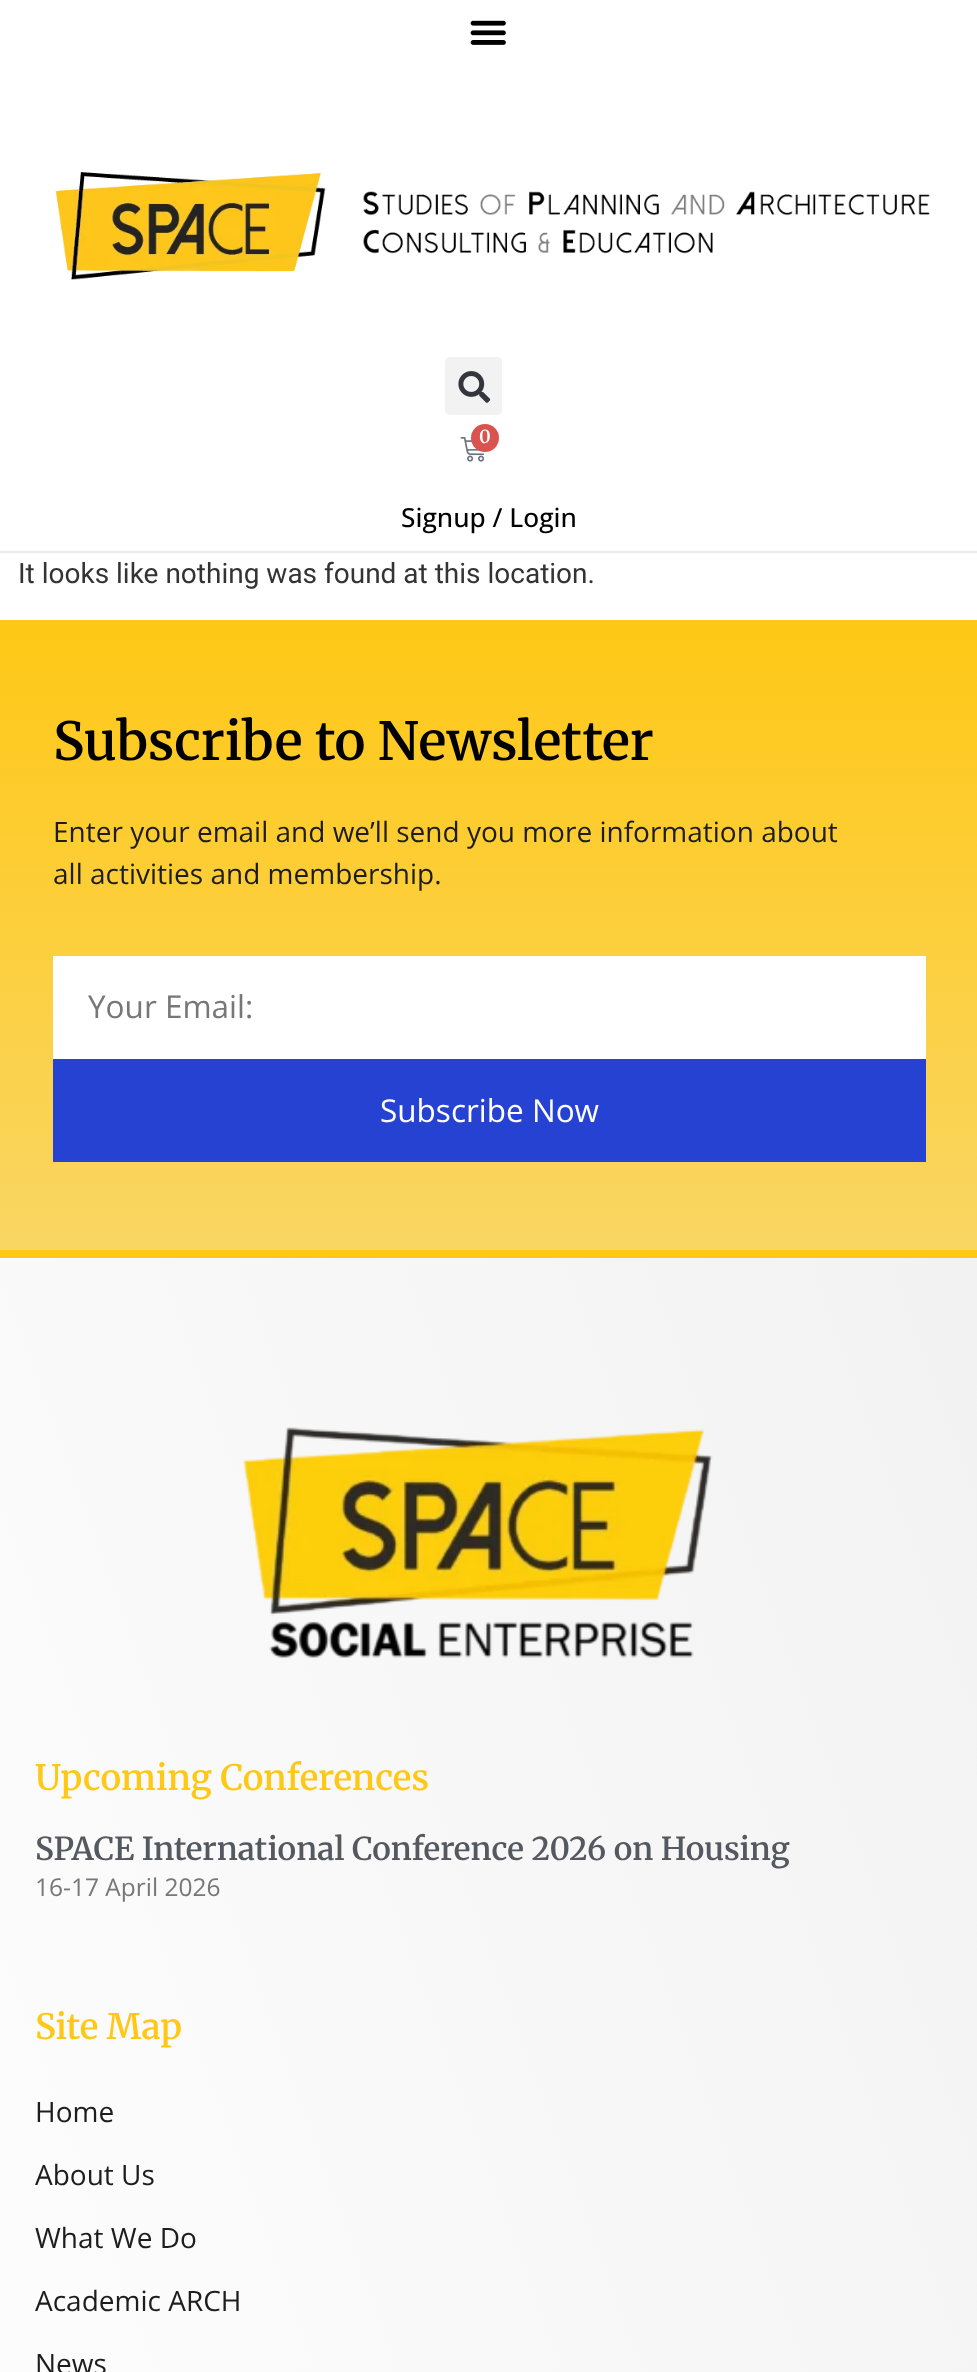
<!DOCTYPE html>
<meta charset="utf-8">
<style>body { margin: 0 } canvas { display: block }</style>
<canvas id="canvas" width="977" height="2372"></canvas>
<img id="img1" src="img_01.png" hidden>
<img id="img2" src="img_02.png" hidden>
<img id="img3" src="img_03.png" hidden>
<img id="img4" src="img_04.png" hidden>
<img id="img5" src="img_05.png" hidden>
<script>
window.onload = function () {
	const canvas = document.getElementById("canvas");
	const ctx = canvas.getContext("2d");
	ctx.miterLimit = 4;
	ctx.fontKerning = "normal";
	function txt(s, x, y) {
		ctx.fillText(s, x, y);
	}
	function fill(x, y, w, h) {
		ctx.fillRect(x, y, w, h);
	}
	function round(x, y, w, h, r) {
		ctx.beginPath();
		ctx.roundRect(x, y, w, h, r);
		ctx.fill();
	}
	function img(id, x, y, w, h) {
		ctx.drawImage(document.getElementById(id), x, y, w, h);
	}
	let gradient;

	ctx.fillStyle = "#FFFFFF";
	fill(0, 0, 977, 2372);
	ctx.fillStyle = "#E6EAEA";
	fill(0, 551, 977, 2);
	img("img1", 470, 20, 36, 25);
	img("img2", 55, 172, 875, 108);
	ctx.fillStyle = "#F2F2F2";
	round(445, 357, 57, 58, 5);
	img("img3", 458, 371, 33, 32);
	img("img4", 460, 437, 24, 25);
	ctx.fillStyle = "#D9534F";
	ctx.beginPath();
	ctx.arc(485, 438, 14, 0, Math.PI * 2);
	ctx.fill();
	gradient = ctx.createLinearGradient(489, 620, 489, 1250);
	gradient.addColorStop(0, "#FFC816");
	gradient.addColorStop(1, "#F9D663");
	ctx.fillStyle = gradient;
	fill(0, 620, 977, 630);
	ctx.fillStyle = "#FFC816";
	fill(0, 1250, 977, 8);
	ctx.fillStyle = "#FFFFFF";
	fill(53, 956, 873, 103);
	ctx.fillStyle = "#2642D3";
	fill(53, 1059, 873, 103);
	gradient = ctx.createLinearGradient(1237, 1969, -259, 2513);
	gradient.addColorStop(0, "#F2F2F2");
	gradient.addColorStop(1, "#FFFFFF");
	ctx.fillStyle = gradient;
	fill(0, 1258, 977, 1114);
	img("img5", 243, 1427, 470, 231);
	ctx.font = "600 18px Merriweather";
	ctx.fillStyle = "#FFFFFF";
	txt("0", 479, 443);
	ctx.font = "500 26.25px Open Sans";
	ctx.fillStyle = "#000000";
	txt("Signup / Login", 401, 527);
	ctx.font = "28px Roboto";
	ctx.fillStyle = "#333333";
	txt("It looks like nothing was found at this location.", 18, 583);
	ctx.font = "600 52.5px Merriweather";
	ctx.fillStyle = "#000000";
	txt("Subscribe to Newsletter", 53, 760);
	ctx.font = "28px Open Sans";
	ctx.fillStyle = "#1D1D1D";
	txt("Enter your email and we’ll send you more information about", 53, 842);
	txt("all activities and membership.", 53, 884);
	ctx.font = "31.5px Open Sans";
	ctx.fillStyle = "#777777";
	txt("Your Email:", 88, 1018);
	ctx.fillStyle = "#FFFFFF";
	txt("Subscribe Now", 380, 1122);
	ctx.font = "600 35px Merriweather";
	ctx.fillStyle = "#FFC816";
	txt("Upcoming Conferences", 35, 1790);
	ctx.font = "600 31.5px Merriweather";
	ctx.fillStyle = "#54595F";
	txt("SPACE International Conference 2026 on Housing", 35, 1860);
	ctx.font = "24.5px Open Sans";
	ctx.fillStyle = "#777777";
	txt("16-17 April 2026", 35, 1896);
	ctx.font = "600 35px Merriweather";
	ctx.fillStyle = "#FFC816";
	txt("Site Map", 35, 2039);
	ctx.font = "28px Open Sans";
	ctx.fillStyle = "#1D1D1D";
	txt("Home", 35, 2122);
	txt("About Us", 35, 2185);
	txt("What We Do", 35, 2248);
	txt("Academic ARCH", 35, 2311);
	txt("News", 35, 2374);
};
</script>
